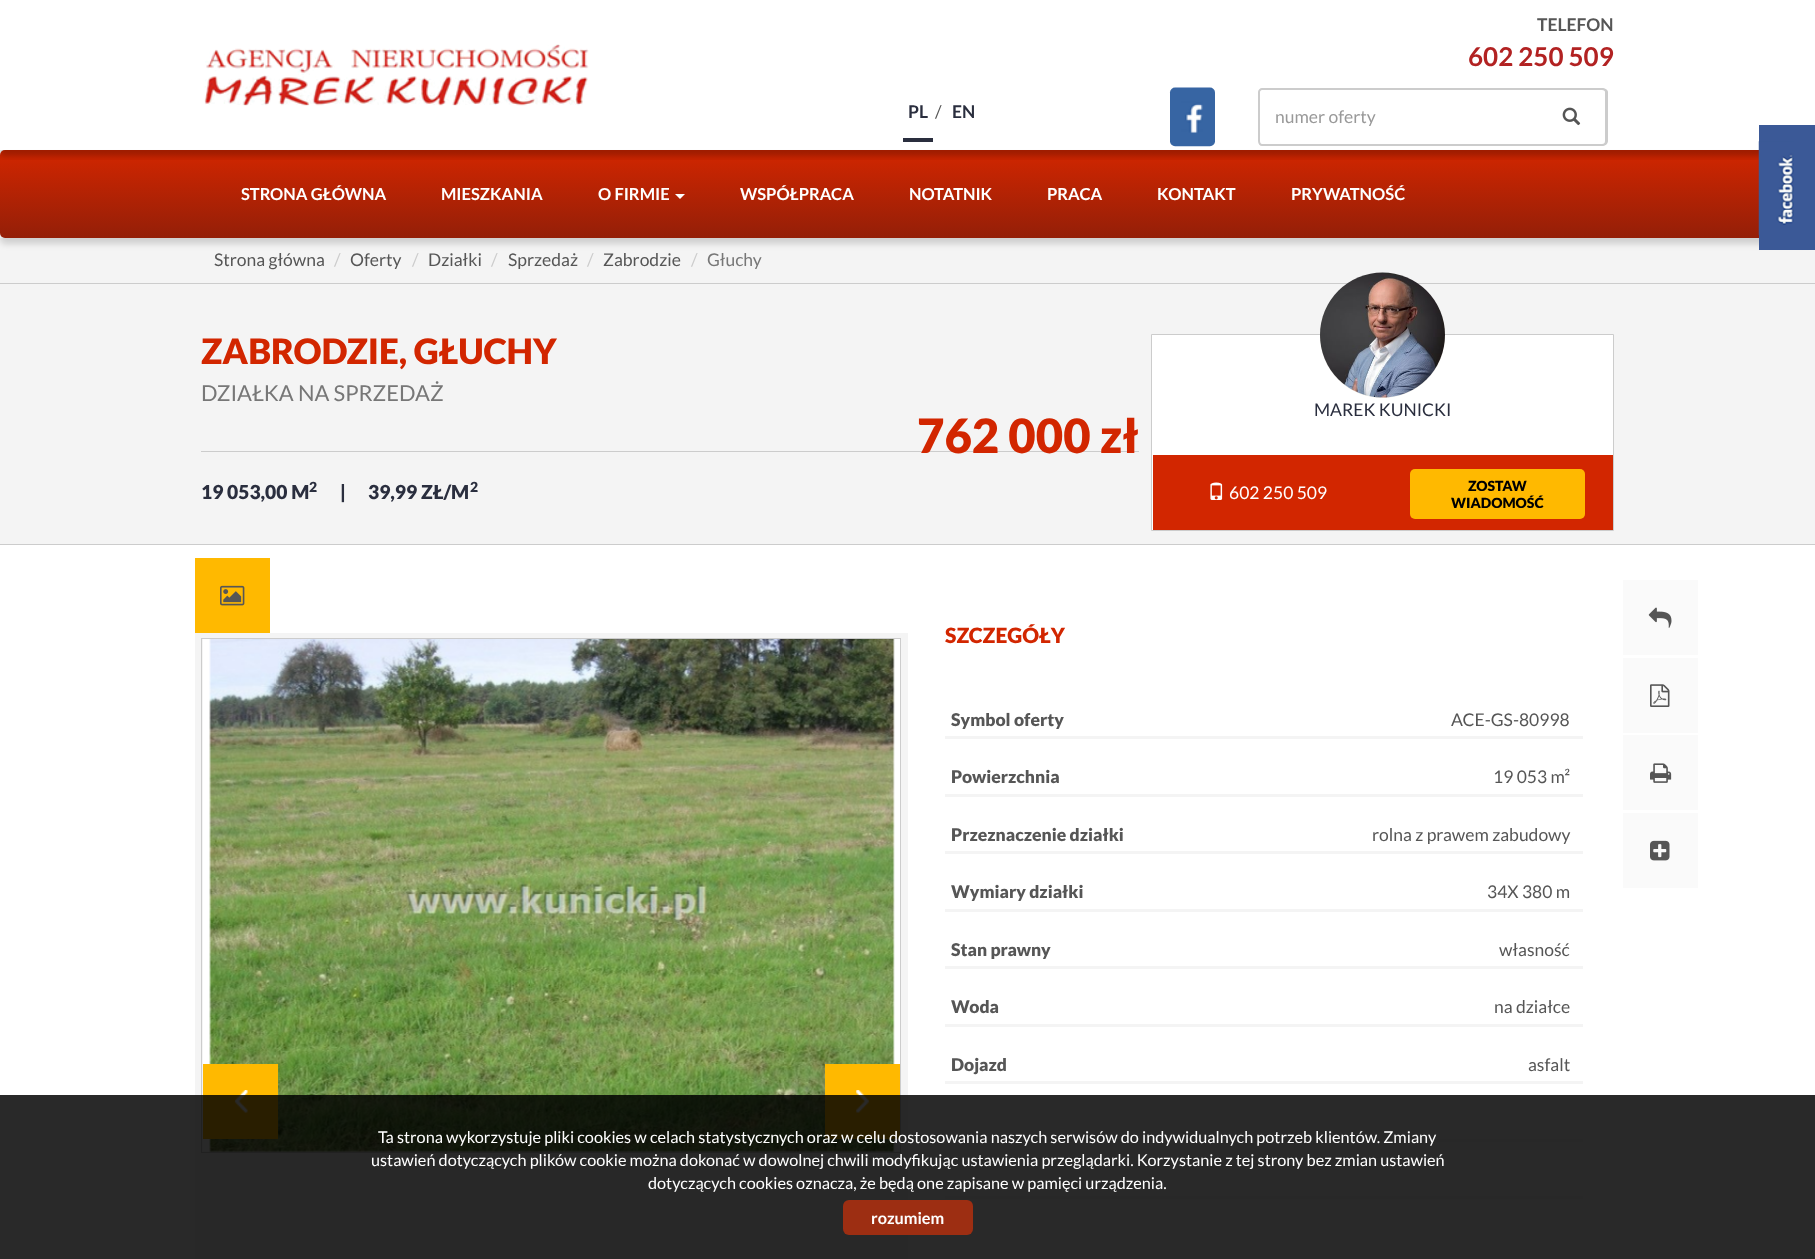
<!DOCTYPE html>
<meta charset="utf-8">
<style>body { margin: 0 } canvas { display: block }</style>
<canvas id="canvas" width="1815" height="1259"></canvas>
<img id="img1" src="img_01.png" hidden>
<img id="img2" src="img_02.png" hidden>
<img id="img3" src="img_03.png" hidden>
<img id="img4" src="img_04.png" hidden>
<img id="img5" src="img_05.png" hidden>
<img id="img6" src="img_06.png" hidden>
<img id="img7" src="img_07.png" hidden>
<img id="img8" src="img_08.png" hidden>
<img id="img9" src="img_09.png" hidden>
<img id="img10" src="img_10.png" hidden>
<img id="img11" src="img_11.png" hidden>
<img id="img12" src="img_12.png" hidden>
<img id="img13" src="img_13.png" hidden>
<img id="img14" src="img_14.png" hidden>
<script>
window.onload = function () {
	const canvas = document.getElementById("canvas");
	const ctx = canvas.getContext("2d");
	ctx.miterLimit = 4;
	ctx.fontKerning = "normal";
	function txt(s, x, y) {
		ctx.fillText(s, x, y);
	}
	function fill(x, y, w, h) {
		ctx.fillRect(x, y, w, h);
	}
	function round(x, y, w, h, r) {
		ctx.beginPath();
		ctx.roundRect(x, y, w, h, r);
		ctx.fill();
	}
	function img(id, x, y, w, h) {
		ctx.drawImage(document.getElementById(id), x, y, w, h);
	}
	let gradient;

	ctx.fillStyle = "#FFFFFF";
	fill(0, 0, 1815, 1259);
	ctx.fillStyle = "#F4F4F4";
	fill(0, 238, 1815, 45);
	ctx.fillStyle = "rgba(0, 0, 0, 0.15)";
	ctx.filter = "blur(3px)";
	ctx.beginPath();
	ctx.roundRect(0, 156, 1815, 88, 5);
	ctx.fill();
	ctx.filter = "none";
	gradient = ctx.createLinearGradient(908, 150, 908, 238);
	gradient.addColorStop(0, "#D22600");
	gradient.addColorStop(1, "#941F08");
	ctx.fillStyle = gradient;
	round(0, 150, 1815, 88, 5);
	ctx.save();
	ctx.beginPath();
	ctx.rect(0, 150, 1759, 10);
	ctx.clip();
	ctx.fillStyle = "rgba(0, 0, 0, 0.25)";
	ctx.filter = "blur(3px)";
	ctx.beginPath();
	ctx.rect(0, 6, 1815, 150);
	ctx.fill();
	ctx.filter = "none";
	ctx.restore();
	img("img1", 204, 44, 385, 62);
	ctx.fillStyle = "#2A2E3E";
	fill(903, 138, 30, 4);
	img("img2", 1169, 87, 46, 60);
	ctx.fillStyle = "#CCCCCC";
	ctx.beginPath();
	ctx.moveTo(1538, 88);
	ctx.lineTo(1602, 88);
	ctx.bezierCurveTo(1605, 88, 1608, 90, 1608, 92);
	ctx.lineTo(1608, 141);
	ctx.bezierCurveTo(1608, 144, 1605, 146, 1602, 146);
	ctx.lineTo(1538, 146);
	ctx.closePath();
	ctx.moveTo(1538, 90);
	ctx.lineTo(1602, 90);
	ctx.bezierCurveTo(1604, 90, 1605, 91, 1605, 92);
	ctx.lineTo(1605, 141);
	ctx.bezierCurveTo(1605, 143, 1604, 144, 1602, 144);
	ctx.lineTo(1538, 144);
	ctx.closePath();
	ctx.fill("evenodd");
	ctx.fillStyle = "#FFFFFF";
	ctx.beginPath();
	ctx.roundRect(1258, 88, 292, 58, [5, 0, 0, 5]);
	ctx.fill();
	ctx.fillStyle = "#CCCCCC";
	ctx.beginPath();
	ctx.moveTo(1262, 88);
	ctx.lineTo(1550, 88);
	ctx.lineTo(1550, 146);
	ctx.lineTo(1262, 146);
	ctx.bezierCurveTo(1260, 146, 1258, 144, 1258, 141);
	ctx.lineTo(1258, 92);
	ctx.bezierCurveTo(1258, 90, 1260, 88, 1262, 88);
	ctx.closePath();
	ctx.moveTo(1262, 90);
	ctx.lineTo(1550, 90);
	ctx.lineTo(1550, 144);
	ctx.lineTo(1262, 144);
	ctx.bezierCurveTo(1261, 144, 1260, 143, 1260, 141);
	ctx.lineTo(1260, 92);
	ctx.bezierCurveTo(1260, 91, 1261, 90, 1262, 90);
	ctx.closePath();
	ctx.fill("evenodd");
	img("img3", 1562, 107, 19, 19);
	ctx.fillStyle = "#FFFFFF";
	ctx.beginPath();
	ctx.moveTo(675, 194);
	ctx.lineTo(685, 194);
	ctx.lineTo(680, 199);
	ctx.closePath();
	ctx.fill();
	ctx.fillStyle = "#3B5997";
	fill(1759, 125, 56, 125);
	img("img4", 1758, 141, 36, 94);
	ctx.fillStyle = "#CCCCCC";
	fill(0, 283, 1815, 1);
	ctx.fillStyle = "#F4F4F4";
	fill(0, 284, 1815, 260);
	ctx.fillStyle = "#CCCCCC";
	fill(0, 544, 1815, 1);
	fill(201, 451, 938, 1);
	ctx.fillStyle = "#FFFFFF";
	ctx.beginPath();
	ctx.rect(1151.5, 334.5, 462, 196);
	ctx.fill();
	ctx.strokeStyle = "#CCCCCC";
	ctx.stroke();
	ctx.fillStyle = "#F3F1EA";
	ctx.beginPath();
	ctx.arc(1382.5, 335.5, 62.5, 0, Math.PI * 2);
	ctx.fill();
	img("img5", 1320, 272, 125, 126);
	ctx.fillStyle = "#D22600";
	fill(1153, 455, 460, 75);
	img("img6", 1210, 482, 13, 18);
	ctx.fillStyle = "#FFB900";
	round(1410, 469, 175, 50, 5);
	ctx.fillStyle = "#F4F4F4";
	fill(195, 633, 713, 626);
	ctx.fillStyle = "#FFB900";
	fill(195, 558, 75, 75);
	img("img7", 220, 585, 25, 21);
	ctx.strokeRect(201.5, 638.5, 699, 514);
	ctx.fillStyle = "#FFFFFF";
	fill(203, 639, 697, 512);
	img("img8", 209, 639, 686, 513);
	ctx.fillStyle = "#FFB900";
	fill(203, 1064, 75, 75);
	img("img9", 234, 1090, 14, 23);
	fill(825, 1064, 75, 75);
	img("img10", 856, 1090, 13, 23);
	ctx.fillStyle = "#F4F4F4";
	fill(945, 736, 638, 3);
	fill(945, 794, 638, 3);
	fill(945, 851, 638, 3);
	fill(945, 909, 638, 3);
	fill(945, 966, 638, 3);
	fill(945, 1024, 638, 3);
	fill(945, 1081, 638, 3);
	fill(945, 1139, 638, 3);
	fill(945, 1196, 638, 3);
	ctx.fillStyle = "#FAFAFA";
	fill(1623, 580, 75, 75);
	img("img11", 1648, 607, 24, 21);
	fill(1623, 658, 75, 75);
	img("img12", 1650, 684, 20, 23);
	fill(1623, 735, 75, 75);
	img("img13", 1650, 763, 22, 20);
	fill(1623, 813, 75, 75);
	img("img14", 1650, 840, 20, 21);
	ctx.fillStyle = "rgba(0, 0, 0, 0.84)";
	fill(0, 1095, 1815, 164);
	ctx.fillStyle = "#9D2E12";
	round(843, 1200, 130, 35, 6);
	ctx.font = "bold 17.5px Lato";
	ctx.fillStyle = "#565656";
	txt("TELEFON", 1537, 31);
	ctx.font = "bold 26px Lato";
	ctx.fillStyle = "#B22222";
	txt("602 250 509", 1468, 66);
	ctx.font = "bold 17.5px Lato";
	ctx.fillStyle = "#2A2E3E";
	txt("PL", 908, 118);
	ctx.font = "17.5px Lato";
	ctx.fillStyle = "#565656";
	txt("/", 935, 118);
	ctx.font = "bold 17.5px Lato";
	ctx.fillStyle = "#2A2E3E";
	txt("EN", 952, 118);
	ctx.font = "17.5px Lato";
	ctx.fillStyle = "#999999";
	txt("numer oferty", 1275, 123);
	ctx.font = "bold 16.5px Lato";
	ctx.fillStyle = "#FFFFFF";
	txt("STRONA GŁÓWNA", 241, 200);
	txt("MIESZKANIA", 441, 200);
	txt("O FIRMIE", 598, 200);
	txt("WSPÓŁPRACA", 740, 200);
	txt("NOTATNIK", 909, 200);
	txt("PRACA", 1047, 200);
	txt("KONTAKT", 1157, 200);
	txt("PRYWATNOŚĆ", 1291, 200);
	ctx.font = "17.5px Lato";
	ctx.fillStyle = "#565656";
	txt("Strona główna", 214, 266);
	ctx.fillStyle = "#CCCCCC";
	txt("/", 334, 266);
	ctx.fillStyle = "#565656";
	txt("Oferty", 350, 266);
	ctx.fillStyle = "#CCCCCC";
	txt("/", 412, 266);
	ctx.fillStyle = "#565656";
	txt("Działki", 428, 266);
	ctx.fillStyle = "#CCCCCC";
	txt("/", 491, 266);
	ctx.fillStyle = "#565656";
	txt("Sprzedaż", 508, 266);
	ctx.fillStyle = "#CCCCCC";
	txt("/", 587, 266);
	ctx.fillStyle = "#565656";
	txt("Zabrodzie", 603, 266);
	ctx.fillStyle = "#CCCCCC";
	txt("/", 691, 266);
	ctx.fillStyle = "#777777";
	txt("Głuchy", 707, 266);
	ctx.font = "900 35px Lato";
	ctx.fillStyle = "#D22600";
	txt("ZABRODZIE, GŁUCHY", 201, 364);
	ctx.font = "21.9px Lato";
	ctx.fillStyle = "#777777";
	txt("DZIAŁKA NA SPRZEDAŻ", 201, 401);
	ctx.font = "900 47.25px Lato";
	ctx.fillStyle = "#D22600";
	txt("762 000 zł", 917, 453);
	ctx.font = "900 19.25px Lato";
	ctx.fillStyle = "#2A2E3E";
	txt("19 053,00 M", 201, 499);
	ctx.font = "900 14px Lato";
	txt("2", 309, 492);
	ctx.font = "900 19.25px Lato";
	txt("|", 340, 499);
	txt("39,99 ZŁ/M", 368, 499);
	ctx.font = "900 14px Lato";
	txt("2", 470, 492);
	ctx.font = "17.5px Lato";
	txt("MAREK KUNICKI", 1314, 416);
	ctx.fillStyle = "#FFFFFF";
	txt("602 250 509", 1229, 499);
	ctx.font = "900 14px Lato";
	ctx.fillStyle = "#000000";
	txt("ZOSTAW", 1468, 491);
	txt("WIADOMOŚĆ", 1451, 508);
	ctx.font = "900 21px Lato";
	ctx.fillStyle = "#D22600";
	txt("SZCZEGÓŁY", 945, 643);
	ctx.font = "900 17.5px Lato";
	ctx.fillStyle = "#565656";
	txt("Symbol oferty", 951, 726);
	ctx.font = "17.5px Lato";
	txt("ACE-GS-80998", 1451, 726);
	ctx.font = "900 17.5px Lato";
	txt("Powierzchnia", 951, 783);
	ctx.font = "17.5px Lato";
	txt("19 053 m²", 1493, 783);
	ctx.font = "900 17.5px Lato";
	txt("Przeznaczenie działki", 951, 841);
	ctx.font = "17.5px Lato";
	txt("rolna z prawem zabudowy", 1372, 841);
	ctx.font = "900 17.5px Lato";
	txt("Wymiary działki", 951, 898);
	ctx.font = "17.5px Lato";
	txt("34X 380 m", 1487, 898);
	ctx.font = "900 17.5px Lato";
	txt("Stan prawny", 951, 956);
	ctx.font = "17.5px Lato";
	txt("własność", 1499, 956);
	ctx.font = "900 17.5px Lato";
	txt("Woda", 951, 1013);
	ctx.font = "17.5px Lato";
	txt("na działce", 1494, 1013);
	ctx.font = "900 17.5px Lato";
	txt("Dojazd", 951, 1071);
	ctx.font = "17.5px Lato";
	txt("asfalt", 1528, 1071);
	ctx.font = "16.25px Lato";
	ctx.fillStyle = "#FFFFFF";
	txt("Ta strona wykorzystuje pliki cookies w celach statystycznych oraz w celu dostosowania naszych serwisów do indywidualnych potrzeb klientów. Zmiany", 378, 1143);
	txt("ustawień dotyczących plików cookie można dokonać w dowolnej chwili modyfikując ustawienia przeglądarki. Korzystanie z tej strony bez zmian ustawień", 371, 1166);
	txt("dotyczących cookies oznacza, że będą one zapisane w pamięci urządzenia.", 648, 1189);
	ctx.font = "bold 16.25px Lato";
	txt("rozumiem", 871, 1224);
};
</script>
